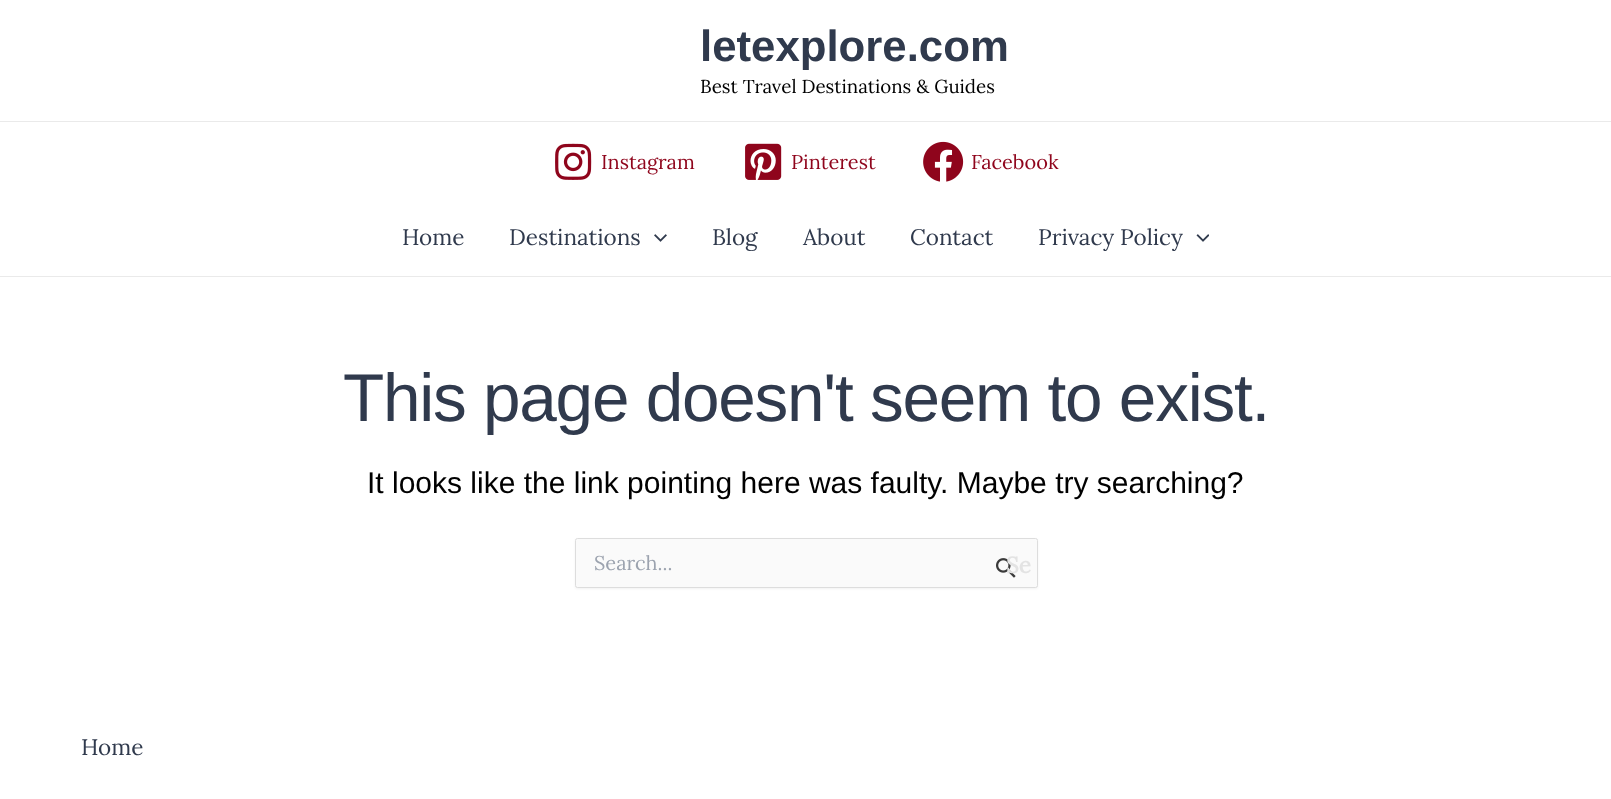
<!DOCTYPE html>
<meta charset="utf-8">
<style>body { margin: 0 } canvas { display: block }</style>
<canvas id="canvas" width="1611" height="799"></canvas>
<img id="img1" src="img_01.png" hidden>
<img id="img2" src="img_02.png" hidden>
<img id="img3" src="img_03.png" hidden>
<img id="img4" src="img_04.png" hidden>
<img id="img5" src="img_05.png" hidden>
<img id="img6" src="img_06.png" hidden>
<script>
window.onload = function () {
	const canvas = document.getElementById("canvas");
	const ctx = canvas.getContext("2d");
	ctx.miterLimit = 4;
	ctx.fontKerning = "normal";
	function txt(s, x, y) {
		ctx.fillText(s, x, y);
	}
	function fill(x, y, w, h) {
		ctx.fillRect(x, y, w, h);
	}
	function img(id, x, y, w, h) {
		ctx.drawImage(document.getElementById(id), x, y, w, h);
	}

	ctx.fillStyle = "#FFFFFF";
	fill(0, 0, 1611, 799);
	ctx.fillStyle = "#EAEAEA";
	fill(0, 121, 1611, 1);
	img("img1", 555, 143, 37, 37);
	img("img2", 745, 143, 37, 37);
	img("img3", 923, 141, 41, 41);
	fill(0, 276, 1611, 1);
	img("img4", 654, 234, 13, 8);
	img("img5", 1196, 234, 13, 8);
	ctx.fillStyle = "rgba(0, 0, 0, 0.05)";
	ctx.filter = "blur(1px)";
	ctx.beginPath();
	ctx.roundRect(575, 539, 463, 50, 2.5);
	ctx.fill();
	ctx.filter = "none";
	ctx.fillStyle = "#FAFAFA";
	ctx.beginPath();
	ctx.roundRect(575.5, 538.5, 462, 49, 2);
	ctx.fill();
	ctx.strokeStyle = "#DDDDDD";
	ctx.stroke();
	img("img6", 996, 558, 20, 20);
	ctx.font = "bold 43.75px Liberation Sans";
	ctx.fillStyle = "#303A4D";
	txt("letexplore.com", 700, 61);
	ctx.font = "18.75px Lora";
	ctx.fillStyle = "#000000";
	txt("Best Travel Destinations & Guides", 700, 93);
	ctx.font = "20px Lora";
	ctx.fillStyle = "#8F051C";
	txt("Instagram", 601, 169);
	txt("Pinterest", 791, 169);
	txt("Facebook", 971, 169);
	ctx.font = "22.5px Lora";
	ctx.fillStyle = "#303A4D";
	txt("Home", 402, 245);
	txt("Destinations", 509, 245);
	txt("Blog", 712, 245);
	txt("About", 803, 245);
	txt("Contact", 910, 245);
	txt("Privacy Policy", 1038, 245);
	ctx.letterSpacing = "-1.25px";
	ctx.font = "67.5px Liberation Sans";
	txt("This page doesn't seem to exist.", 343, 421);
	ctx.letterSpacing = "0px";
	ctx.font = "30px Liberation Sans";
	ctx.fillStyle = "#000000";
	txt("It looks like the link pointing here was faulty. Maybe try searching?", 367, 493);
	ctx.font = "20px Lora";
	ctx.fillStyle = "#9CA3AF";
	txt("Search...", 594, 570);
	ctx.font = "bold 22.5px Lora";
	ctx.fillStyle = "#E3E3E3";
	txt("Se", 1006, 573);
	ctx.font = "22.5px Lora";
	ctx.fillStyle = "#303A4D";
	txt("Home", 81, 755);
};
</script>
